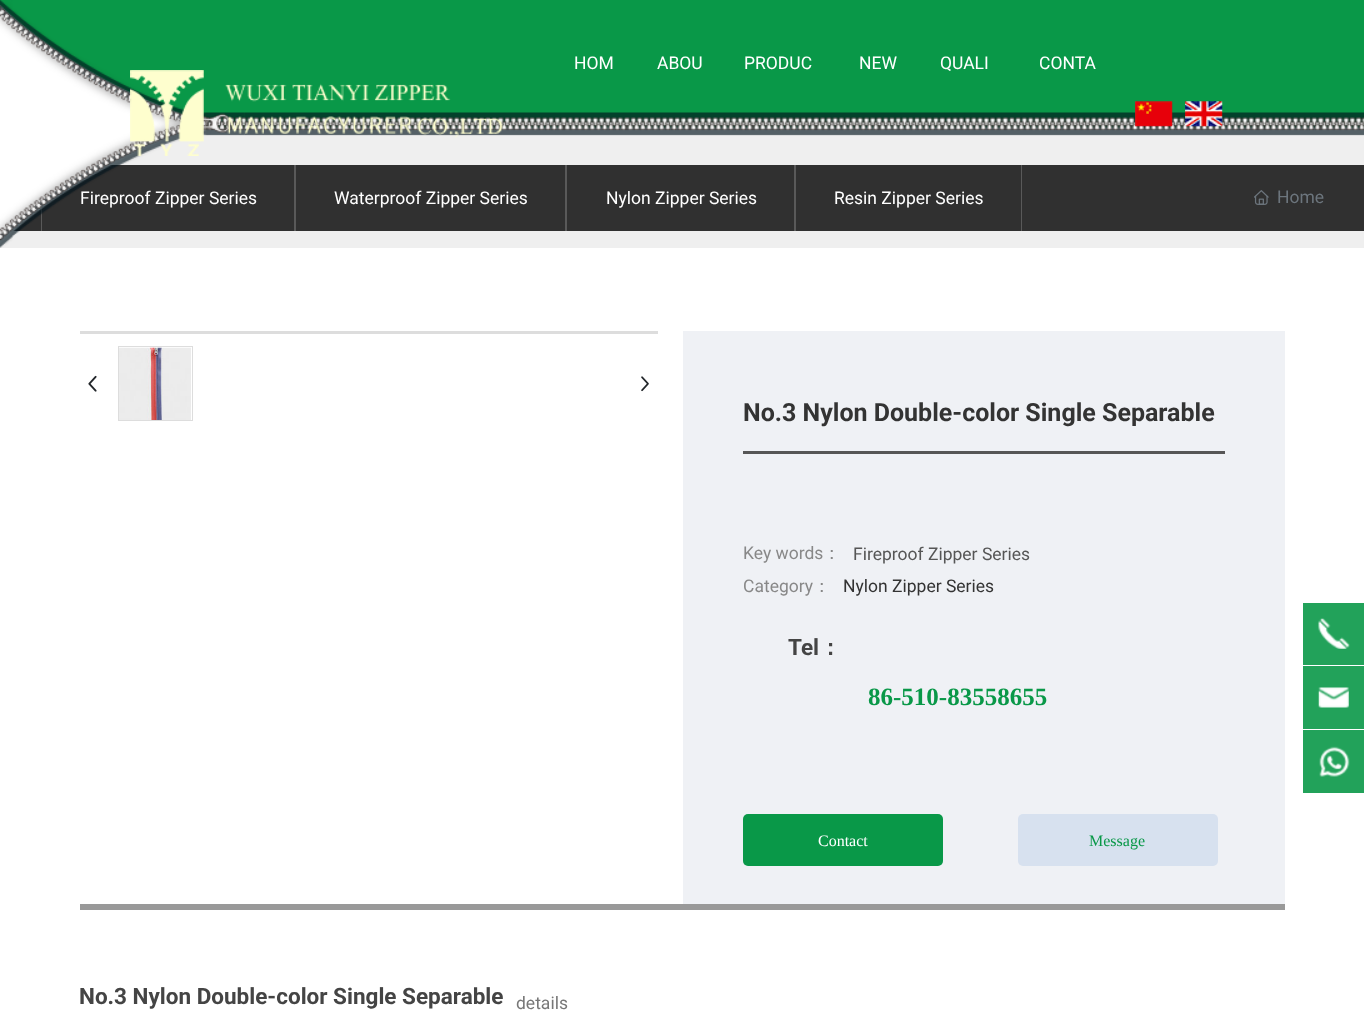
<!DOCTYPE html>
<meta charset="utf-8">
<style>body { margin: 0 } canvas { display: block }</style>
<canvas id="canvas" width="1364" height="1035"></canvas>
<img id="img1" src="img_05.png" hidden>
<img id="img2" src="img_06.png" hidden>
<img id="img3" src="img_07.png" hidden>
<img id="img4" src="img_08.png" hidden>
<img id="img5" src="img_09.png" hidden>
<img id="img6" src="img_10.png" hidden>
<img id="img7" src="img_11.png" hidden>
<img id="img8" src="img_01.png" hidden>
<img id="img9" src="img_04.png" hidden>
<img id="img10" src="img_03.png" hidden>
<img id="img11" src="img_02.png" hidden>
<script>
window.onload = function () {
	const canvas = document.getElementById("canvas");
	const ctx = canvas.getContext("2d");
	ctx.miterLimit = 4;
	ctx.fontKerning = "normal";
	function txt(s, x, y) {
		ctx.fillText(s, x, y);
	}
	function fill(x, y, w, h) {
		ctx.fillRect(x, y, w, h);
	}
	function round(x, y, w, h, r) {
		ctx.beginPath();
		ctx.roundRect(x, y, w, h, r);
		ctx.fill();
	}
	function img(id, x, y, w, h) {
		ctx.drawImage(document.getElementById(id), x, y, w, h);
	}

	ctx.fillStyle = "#FFFFFF";
	fill(0, 0, 1364, 1035);
	ctx.fillStyle = "#EFEFEF";
	fill(0, 127, 1364, 121);
	ctx.fillStyle = "#303030";
	fill(13, 165, 1351, 66);
	ctx.fillStyle = "#595959";
	fill(294, 165, 2, 66);
	fill(41, 207, 1, 24);
	fill(565, 165, 2, 66);
	fill(794, 165, 2, 66);
	fill(1021, 165, 1, 66);
	img("img1", 1254, 190, 15, 15);
	ctx.fillStyle = "#999999";
	fill(80, 904, 1205, 6);
	ctx.fillStyle = "#DDDDDD";
	fill(80, 331, 578, 3);
	ctx.strokeStyle = "#DDDDDD";
	ctx.strokeRect(118.5, 346.5, 74, 74);
	img("img2", 119, 347, 72, 73);
	img("img3", 88, 375, 9, 17);
	img("img4", 641, 376, 8, 16);
	ctx.fillStyle = "#EFF1F5";
	fill(683, 331, 602, 573);
	ctx.fillStyle = "#565656";
	fill(743, 451, 482, 3);
	ctx.fillStyle = "#099848";
	round(743, 814, 200, 52, 5);
	ctx.fillStyle = "#D7E1EF";
	round(1018, 814, 200, 52, 5);
	ctx.fillStyle = "#22A25A";
	fill(1303, 603, 61, 62);
	img("img5", 1318, 618, 32, 31);
	fill(1303, 666, 61, 63);
	img("img6", 1318, 687, 31, 21);
	fill(1303, 730, 61, 63);
	img("img7", 1319, 746, 31, 31);
	ctx.font = "17.5px Roboto";
	ctx.fillStyle = "#FFFFFF";
	txt("Fireproof Zipper Series", 80, 204);
	txt("Waterproof Zipper Series", 334, 204);
	txt("Nylon Zipper Series", 606, 204);
	txt("Resin Zipper Series", 834, 204);
	ctx.fillStyle = "#6C757D";
	txt("Home", 1277, 203);
	img("img8", 0, 0, 1364, 248);
	img("img9", 1185, 101, 38, 26);
	img("img10", 1135, 101, 38, 26);
	ctx.fillStyle = "#FFFFFF";
	txt("CONTA", 1039, 69);
	txt("QUALI", 940, 69);
	txt("NEW", 859, 69);
	txt("PRODUC", 744, 69);
	txt("ABOU", 657, 69);
	txt("HOM", 574, 69);
	img("img11", 130, 70, 373, 86);
	ctx.font = "bold 25px Roboto";
	ctx.fillStyle = "#333333";
	txt("No.3 Nylon Double-color Single Separable", 743, 421);
	ctx.font = "17.5px Roboto";
	ctx.fillStyle = "#888888";
	txt("Key words", 743, 559);
	ctx.font = "500 17.5px WenQuanYi Zen Hei";
	txt("：", 823, 559);
	ctx.font = "17.5px Roboto";
	ctx.fillStyle = "#565656";
	txt("Fireproof Zipper Series", 853, 560);
	ctx.fillStyle = "#888888";
	txt("Category", 743, 592);
	ctx.font = "500 17.5px WenQuanYi Zen Hei";
	txt("：", 813, 592);
	ctx.font = "17.5px Roboto";
	ctx.fillStyle = "#333333";
	txt("Nylon Zipper Series", 843, 592);
	ctx.font = "bold 22.5px Roboto";
	ctx.fillStyle = "#444444";
	txt("Tel", 788, 655);
	ctx.font = "bold 22.5px WenQuanYi Zen Hei";
	txt("：", 819, 655);
	ctx.font = "bold 25px Liberation Serif";
	ctx.fillStyle = "#099848";
	txt("86-510-83558655", 868, 705);
	ctx.font = "16px Liberation Serif";
	ctx.fillStyle = "#FFFFFF";
	txt("Contact", 818, 846);
	ctx.fillStyle = "#099848";
	txt("Message", 1089, 846);
	ctx.font = "bold 22.5px Roboto";
	ctx.fillStyle = "#444444";
	txt("No.3 Nylon Double-color Single Separable", 79, 1004);
	ctx.font = "17.5px Roboto";
	ctx.fillStyle = "#777777";
	txt("details", 516, 1009);
};
</script>
